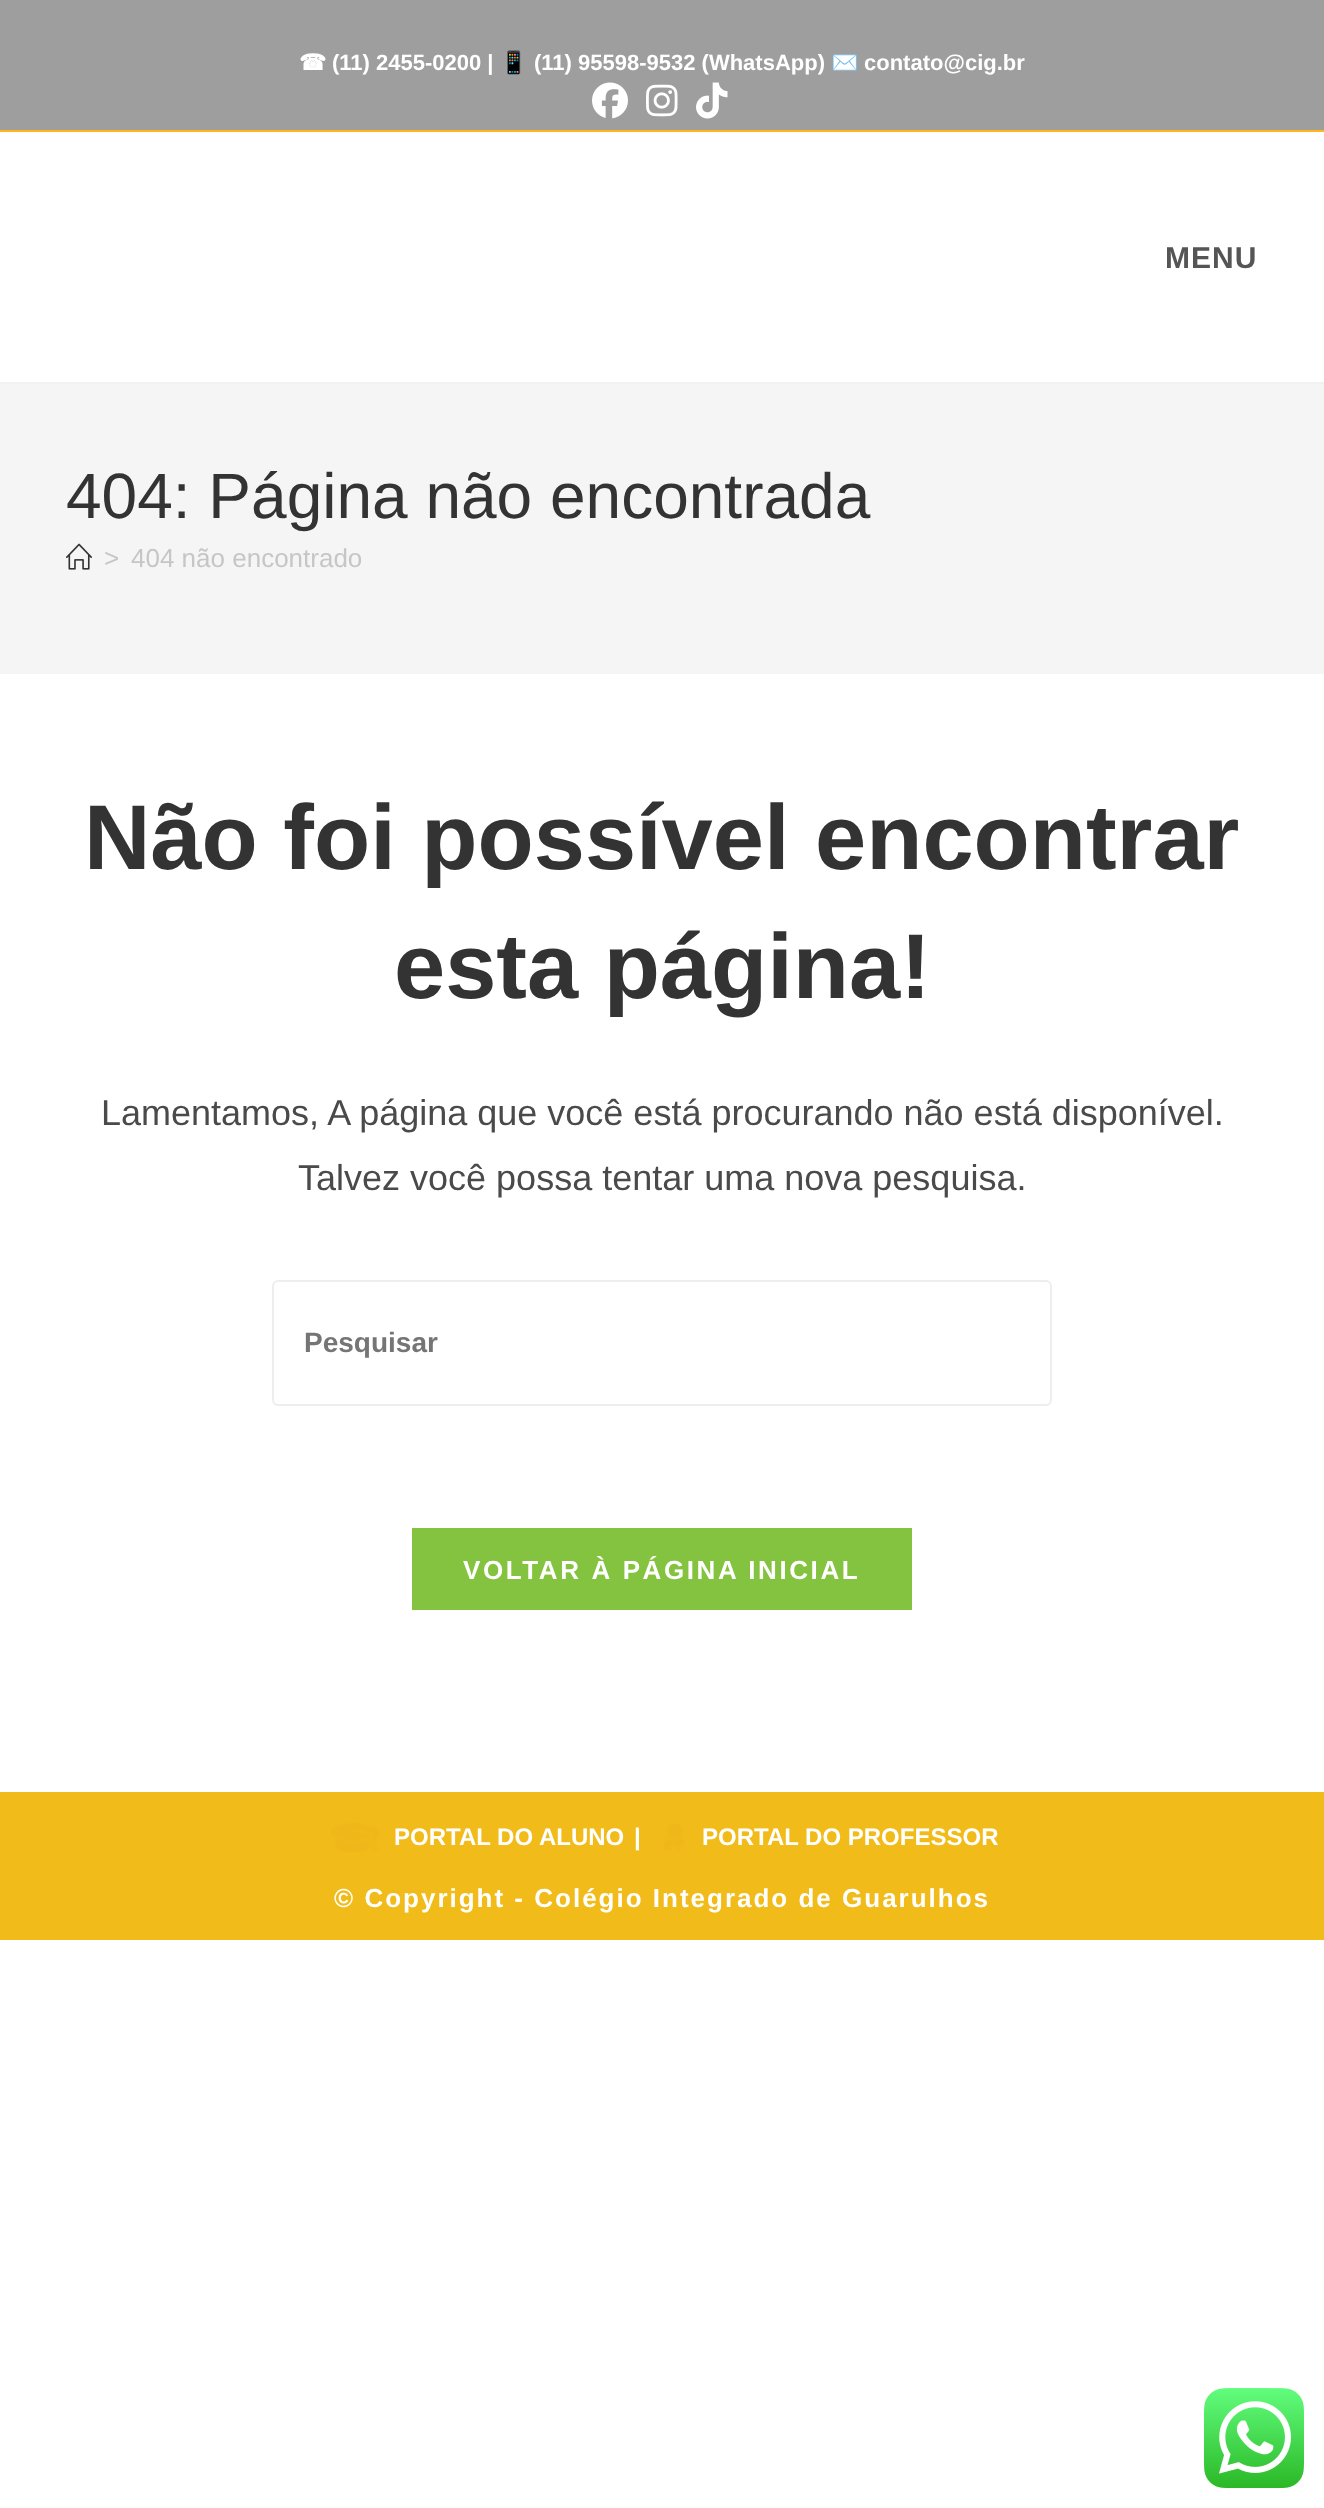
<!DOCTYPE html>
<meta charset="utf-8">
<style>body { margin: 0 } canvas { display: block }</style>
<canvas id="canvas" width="1324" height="2508"></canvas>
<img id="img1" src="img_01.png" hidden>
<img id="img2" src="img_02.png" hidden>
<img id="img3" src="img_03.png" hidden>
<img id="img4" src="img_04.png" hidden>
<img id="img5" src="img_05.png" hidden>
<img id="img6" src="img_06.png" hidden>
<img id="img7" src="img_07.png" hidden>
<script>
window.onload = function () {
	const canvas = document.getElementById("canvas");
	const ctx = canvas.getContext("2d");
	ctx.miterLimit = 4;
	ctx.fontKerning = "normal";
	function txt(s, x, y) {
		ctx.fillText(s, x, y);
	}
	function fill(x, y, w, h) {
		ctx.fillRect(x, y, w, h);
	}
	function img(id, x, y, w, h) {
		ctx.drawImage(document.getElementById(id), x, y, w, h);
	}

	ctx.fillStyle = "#FFFFFF";
	fill(0, 0, 1324, 2508);
	ctx.fillStyle = "#9E9E9E";
	fill(0, 0, 1324, 130);
	ctx.fillStyle = "#FFB71C";
	fill(0, 130, 1324, 2);
	img("img1", 592, 82, 36, 37);
	img("img2", 646, 84, 32, 33);
	img("img3", 696, 82, 32, 37);
	ctx.fillStyle = "#F1F1F1";
	fill(0, 382, 1324, 2);
	ctx.fillStyle = "#F5F5F5";
	fill(0, 384, 1324, 290);
	img("img4", 66, 543, 26, 27);
	ctx.beginPath();
	ctx.roundRect(273, 1281, 778, 124, 5);
	ctx.strokeStyle = "#EEEEEE";
	ctx.lineWidth = 2;
	ctx.stroke();
	ctx.fillStyle = "#84C340";
	fill(412, 1528, 500, 82);
	ctx.fillStyle = "#F1BB19";
	fill(0, 1792, 1324, 148);
	img("img5", 331, 1822, 48, 30);
	img("img6", 664, 1824, 20, 27);
	img("img7", 1204, 2388, 100, 100);
	ctx.font = "bold 22px DejaVu Sans";
	ctx.fillStyle = "#FFFFFF";
	txt("☎", 299, 70);
	ctx.font = "bold 22px Liberation Sans";
	txt("(11) 2455-0200 |", 332, 70);
	ctx.font = "bold 22px Noto Color Emoji";
	txt("📱", 500, 70);
	ctx.font = "bold 22px Liberation Sans";
	txt("(11) 95598-9532 (WhatsApp)", 534, 70);
	ctx.font = "bold 22px Noto Color Emoji";
	txt("✉️", 831, 70);
	ctx.font = "bold 22px Liberation Sans";
	txt("contato@cig.br", 864, 70);
	ctx.letterSpacing = "1px";
	ctx.font = "bold 30px Liberation Sans";
	ctx.fillStyle = "#555555";
	txt("MENU", 1165, 268);
	ctx.letterSpacing = "0px";
	ctx.font = "64px Liberation Sans";
	ctx.fillStyle = "#333333";
	txt("404: Página não encontrada", 66, 518);
	ctx.font = "26px Liberation Sans";
	ctx.fillStyle = "#C6C6C6";
	txt(">", 104, 567);
	txt("404 não encontrado", 131, 567);
	ctx.font = "bold 92px Liberation Sans";
	ctx.fillStyle = "#333333";
	txt("Não foi possível encontrar", 84, 869);
	txt("esta página!", 394, 998);
	ctx.font = "36px Liberation Sans";
	ctx.fillStyle = "#4A4A4A";
	txt("Lamentamos, A página que você está procurando não está disponível.", 101, 1125);
	txt("Talvez você possa tentar uma nova pesquisa.", 298, 1190);
	ctx.font = "bold 28px Liberation Sans";
	ctx.fillStyle = "#757575";
	txt("Pesquisar", 304, 1352);
	ctx.letterSpacing = "2.6px";
	ctx.font = "bold 26px Liberation Sans";
	ctx.fillStyle = "#FFFFFF";
	txt("VOLTAR À PÁGINA INICIAL", 463, 1579);
	ctx.letterSpacing = "0px";
	ctx.font = "bold 24px Liberation Sans";
	txt("PORTAL DO ALUNO", 394, 1845);
	txt("|", 634, 1845);
	txt("PORTAL DO PROFESSOR", 702, 1845);
	ctx.letterSpacing = "2px";
	ctx.font = "bold 26px Liberation Sans";
	txt("© Copyright - Colégio Integrado de Guarulhos", 334, 1907);
};
</script>
